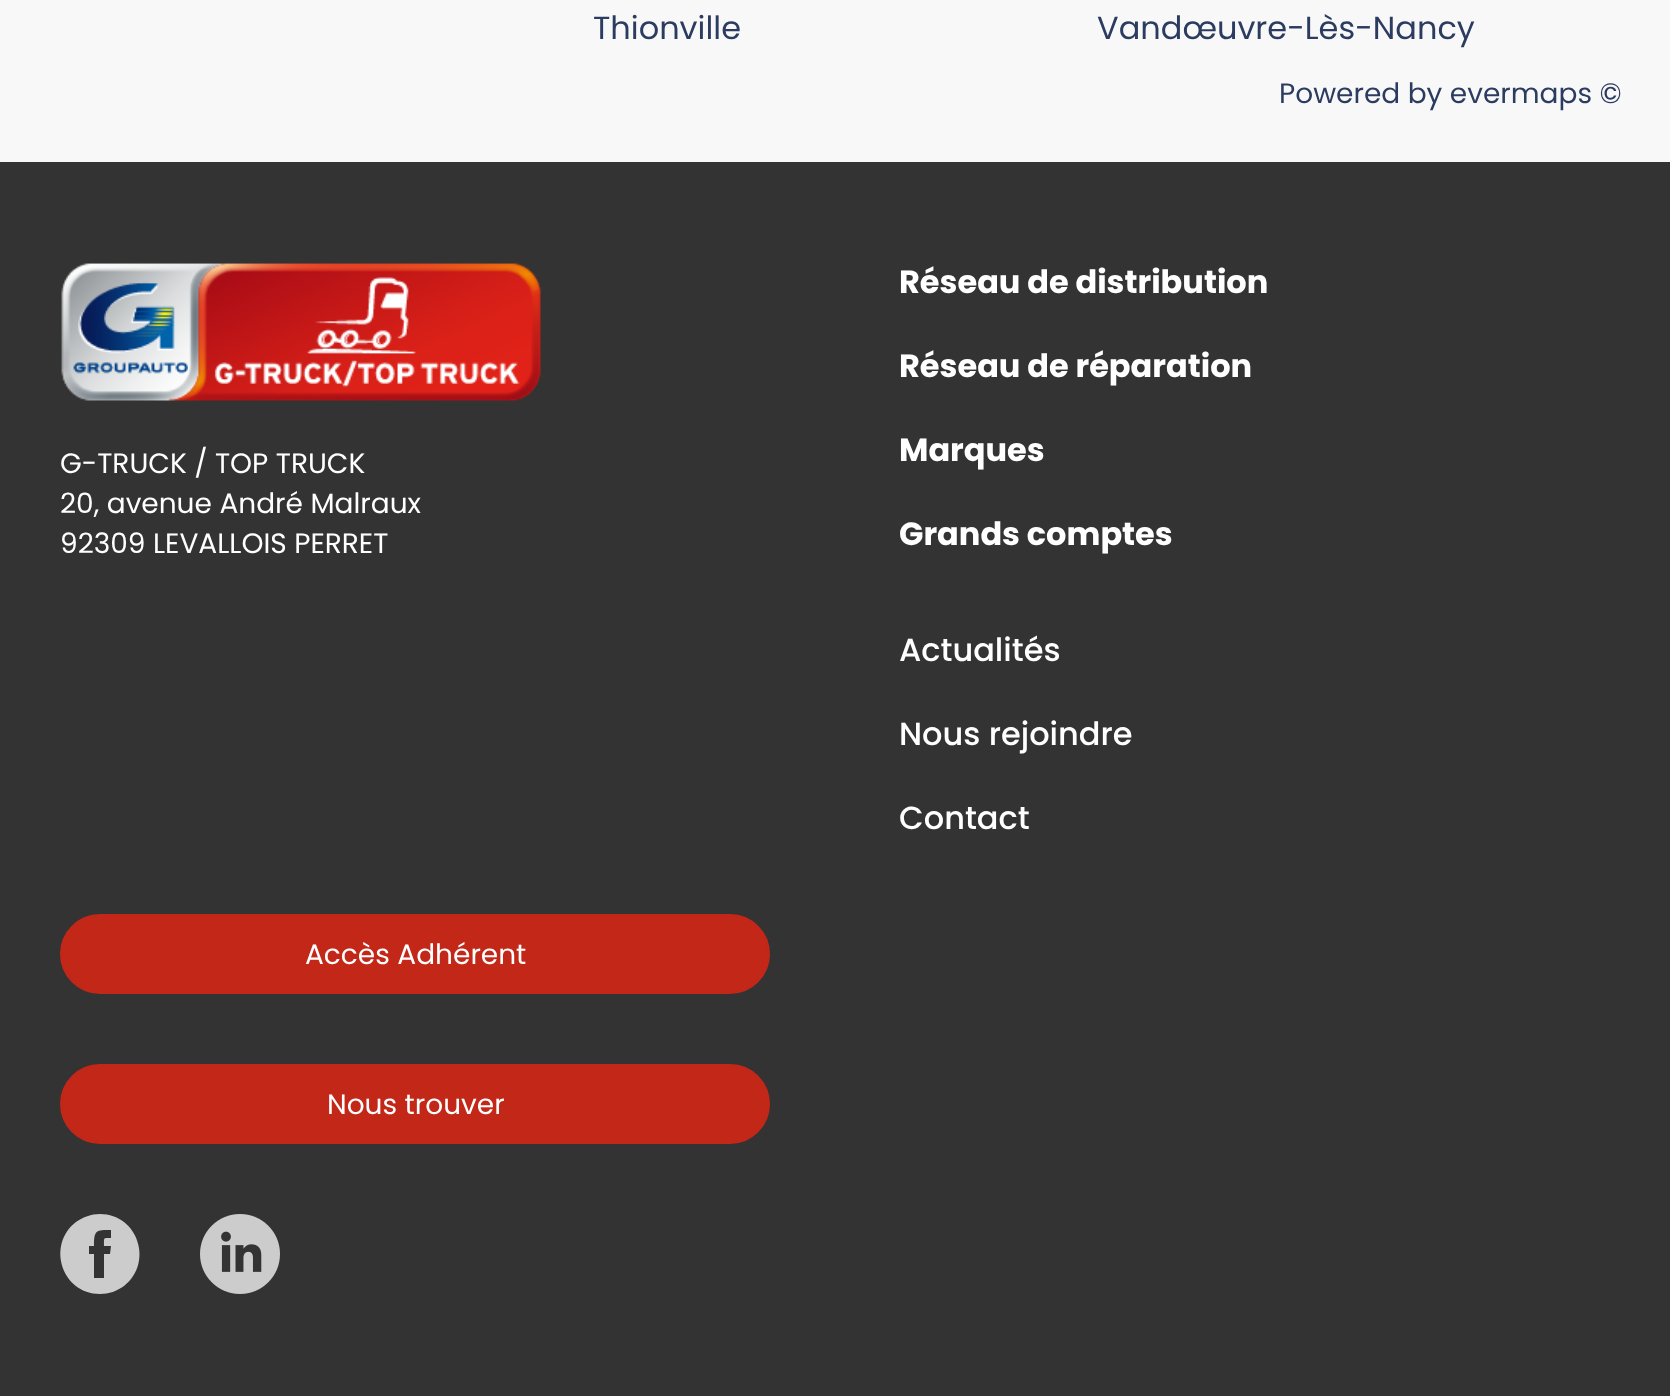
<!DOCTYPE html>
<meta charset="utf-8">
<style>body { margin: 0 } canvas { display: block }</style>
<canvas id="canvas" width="1670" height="1396"></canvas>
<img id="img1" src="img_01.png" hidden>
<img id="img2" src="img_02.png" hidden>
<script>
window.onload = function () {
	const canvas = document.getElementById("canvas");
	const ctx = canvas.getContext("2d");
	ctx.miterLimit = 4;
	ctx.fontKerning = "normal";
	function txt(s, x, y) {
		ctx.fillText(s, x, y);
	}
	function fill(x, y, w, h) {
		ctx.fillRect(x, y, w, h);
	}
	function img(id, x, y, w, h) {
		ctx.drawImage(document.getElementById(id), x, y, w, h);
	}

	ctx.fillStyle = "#F8F8F8";
	fill(0, 0, 1670, 1396);
	ctx.fillStyle = "#333333";
	fill(0, 162, 1670, 1234);
	img("img1", 61, 263, 480, 138);
	ctx.fillStyle = "#C22718";
	ctx.beginPath();
	ctx.roundRect(61, 915, 708, 78, 39);
	ctx.fill();
	ctx.strokeStyle = "#C22718";
	ctx.lineWidth = 2;
	ctx.stroke();
	ctx.beginPath();
	ctx.roundRect(61, 1065, 708, 78, 39);
	ctx.fill();
	ctx.stroke();
	ctx.fillStyle = "#CCCCCC";
	ctx.beginPath();
	ctx.moveTo(100, 1214);
	ctx.bezierCurveTo(91, 1214, 83, 1217, 76, 1222);
	ctx.bezierCurveTo(46, 1245, 62, 1294, 100, 1294);
	ctx.bezierCurveTo(109, 1294, 117, 1291, 124, 1286);
	ctx.bezierCurveTo(154, 1263, 138, 1214, 100, 1214);
	ctx.closePath();
	ctx.moveTo(111, 1238);
	ctx.bezierCurveTo(103, 1238, 104, 1237, 104, 1246);
	ctx.lineTo(111, 1246);
	ctx.lineTo(110, 1254);
	ctx.lineTo(104, 1254);
	ctx.lineTo(104, 1278);
	ctx.lineTo(94, 1278);
	ctx.lineTo(94, 1254);
	ctx.lineTo(89, 1254);
	ctx.lineTo(89, 1246);
	ctx.lineTo(94, 1246);
	ctx.bezierCurveTo(94, 1230, 96, 1230, 111, 1230);
	ctx.closePath();
	ctx.fill();
	img("img2", 200, 1214, 80, 80);
	ctx.font = "32px Poppins";
	ctx.fillStyle = "#2C3C60";
	txt("Thionville", 593, 39);
	txt("Vandœuvre-Lès-Nancy", 1097, 39);
	ctx.font = "28px Poppins";
	txt("Powered by evermaps ©", 1279, 103);
	ctx.fillStyle = "#FFFFFF";
	txt("G-TRUCK / TOP TRUCK", 60, 473);
	txt("20, avenue André Malraux", 60, 513);
	txt("92309 LEVALLOIS PERRET", 60, 553);
	ctx.font = "bold 32px Poppins";
	txt("Réseau de distribution", 899, 293);
	txt("Réseau de réparation", 899, 377);
	txt("Marques", 899, 461);
	txt("Grands comptes", 899, 545);
	ctx.font = "500 32px Poppins";
	txt("Actualités", 899, 661);
	txt("Nous rejoindre", 899, 745);
	txt("Contact", 899, 829);
	ctx.font = "28px Poppins";
	txt("Accès Adhérent", 305, 964);
	txt("Nous trouver", 327, 1114);
};
</script>
